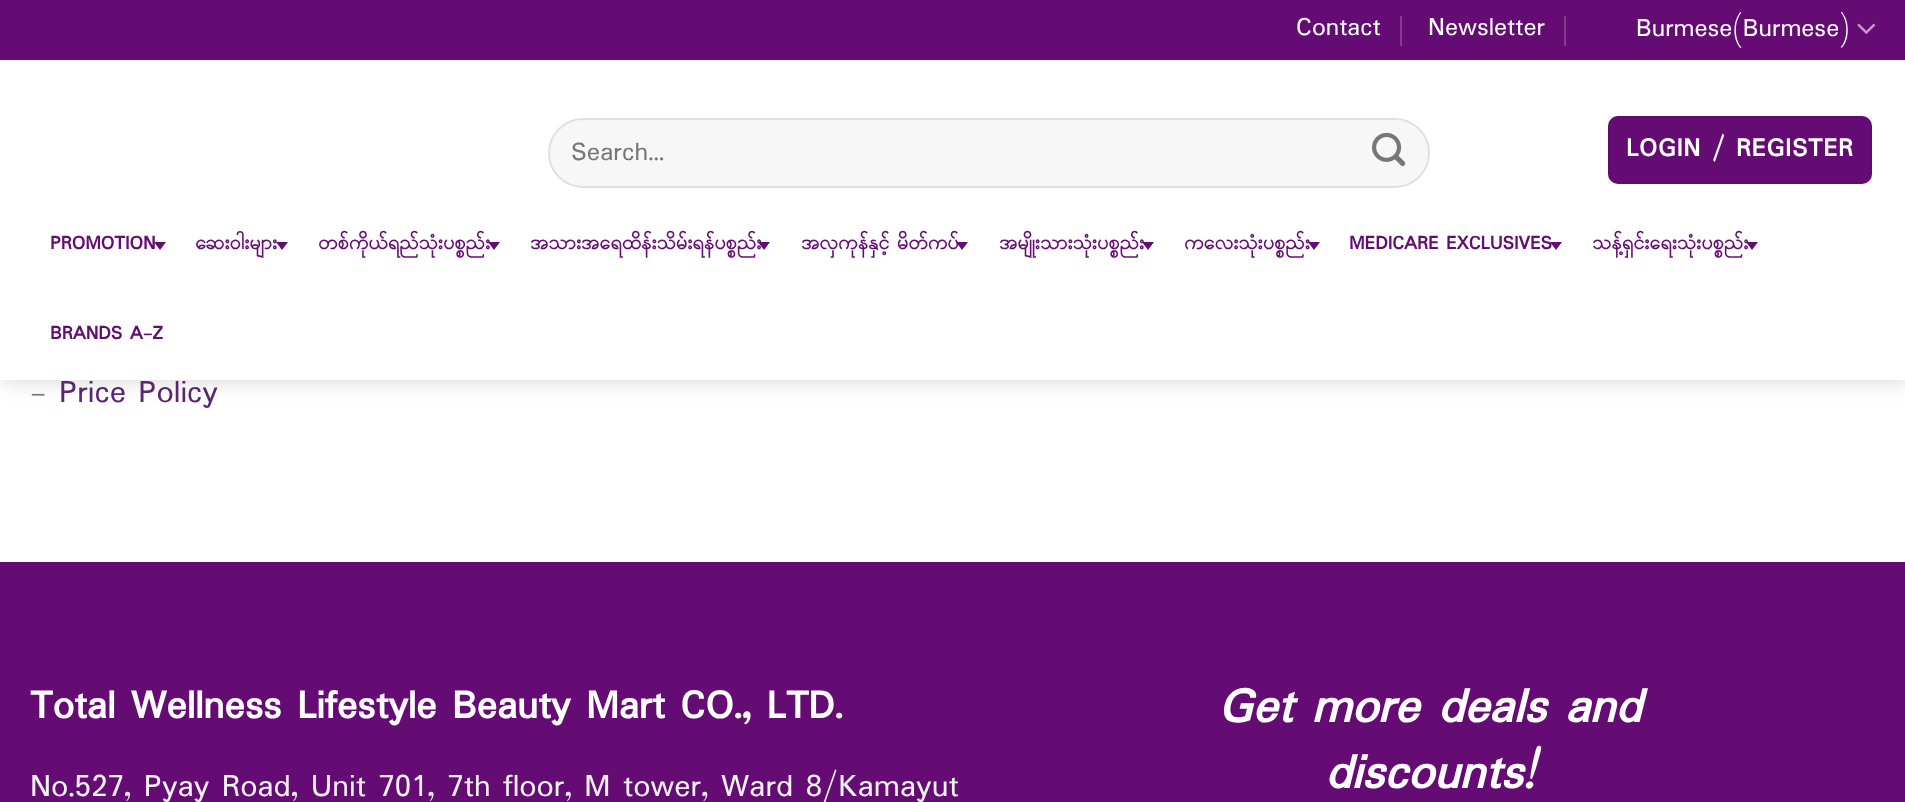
<!DOCTYPE html>
<meta charset="utf-8">
<style>body { margin: 0 } canvas { display: block }</style>
<canvas id="canvas" width="1905" height="802"></canvas>
<img id="img1" src="img_01.png" hidden>
<img id="img2" src="img_02.png" hidden>
<script>
window.onload = function () {
	const canvas = document.getElementById("canvas");
	const ctx = canvas.getContext("2d");
	ctx.miterLimit = 4;
	ctx.fontKerning = "normal";
	function txt(s, x, y) {
		ctx.fillText(s, x, y);
	}
	function fill(x, y, w, h) {
		ctx.fillRect(x, y, w, h);
	}
	function round(x, y, w, h, r) {
		ctx.beginPath();
		ctx.roundRect(x, y, w, h, r);
		ctx.fill();
	}
	function img(id, x, y, w, h) {
		ctx.drawImage(document.getElementById(id), x, y, w, h);
	}

	ctx.fillStyle = "#640B74";
	fill(0, 0, 1905, 802);
	ctx.fillStyle = "#FFFFFF";
	fill(0, 380, 1905, 182);
	ctx.fillStyle = "rgba(0, 0, 0, 0.15)";
	ctx.filter = "blur(10px)";
	ctx.beginPath();
	ctx.rect(2, 2, 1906, 380);
	ctx.fill();
	ctx.filter = "none";
	ctx.fillStyle = "#FFFFFF";
	fill(0, 60, 1905, 320);
	ctx.fillStyle = "#640B74";
	fill(0, 0, 1905, 60);
	ctx.fillStyle = "#833C90";
	fill(1400, 16, 2, 30);
	fill(1564, 16, 2, 30);
	img("img1", 1857, 23, 19, 11);
	ctx.fillStyle = "#F7F7F7";
	round(548, 118, 882, 70, 35);
	ctx.beginPath();
	ctx.roundRect(549, 119, 880, 68, 34);
	ctx.strokeStyle = "rgba(0, 0, 0, 0.09)";
	ctx.lineWidth = 2;
	ctx.stroke();
	img("img2", 1372, 132, 34, 35);
	ctx.fillStyle = "#640B74";
	round(1608, 116, 264, 68, 10);
	ctx.strokeStyle = "rgba(0, 0, 0, 0.05)";
	ctx.strokeRect(1609, 117, 262, 66);
	ctx.beginPath();
	ctx.moveTo(154, 242);
	ctx.lineTo(166, 242);
	ctx.lineTo(160, 250);
	ctx.closePath();
	ctx.fill();
	ctx.beginPath();
	ctx.moveTo(276, 242);
	ctx.lineTo(288, 242);
	ctx.lineTo(282, 250);
	ctx.closePath();
	ctx.fill();
	ctx.beginPath();
	ctx.moveTo(488, 242);
	ctx.lineTo(500, 242);
	ctx.lineTo(494, 250);
	ctx.closePath();
	ctx.fill();
	ctx.beginPath();
	ctx.moveTo(758, 242);
	ctx.lineTo(770, 242);
	ctx.lineTo(764, 250);
	ctx.closePath();
	ctx.fill();
	ctx.beginPath();
	ctx.moveTo(956, 242);
	ctx.lineTo(968, 242);
	ctx.lineTo(962, 250);
	ctx.closePath();
	ctx.fill();
	ctx.beginPath();
	ctx.moveTo(1142, 242);
	ctx.lineTo(1154, 242);
	ctx.lineTo(1148, 250);
	ctx.closePath();
	ctx.fill();
	ctx.beginPath();
	ctx.moveTo(1308, 242);
	ctx.lineTo(1320, 242);
	ctx.lineTo(1314, 250);
	ctx.closePath();
	ctx.fill();
	ctx.beginPath();
	ctx.moveTo(1550, 242);
	ctx.lineTo(1562, 242);
	ctx.lineTo(1556, 250);
	ctx.closePath();
	ctx.fill();
	ctx.beginPath();
	ctx.moveTo(1746, 242);
	ctx.lineTo(1758, 242);
	ctx.lineTo(1752, 250);
	ctx.closePath();
	ctx.fill();
	ctx.font = "26.9px Padauk";
	ctx.fillStyle = "#FFFFFF";
	txt("Contact", 1296, 35);
	txt("Newsletter", 1428, 35);
	txt("Burmese(Burmese)", 1636, 36);
	ctx.font = "27.5px Padauk";
	ctx.fillStyle = "#777777";
	txt("Search…", 571, 160);
	ctx.letterSpacing = "0.75px";
	ctx.font = "bold 26.9px Padauk";
	ctx.fillStyle = "#FFFFFF";
	txt("LOGIN / REGISTER", 1626, 156);
	ctx.letterSpacing = "0px";
	ctx.font = "bold 20px Padauk";
	ctx.fillStyle = "#640B74";
	txt("PROMOTION", 50, 249);
	txt("ဆေး၀ါးများ", 195, 249);
	txt("တစ်ကိုယ်ရည်သုံးပစ္စည်း", 318, 249);
	txt("အသားအရေထိန်းသိမ်းရန်ပစ္စည်း", 530, 249);
	txt("အလှကုန်နှင့် မိတ်ကပ်", 801, 249);
	txt("အမျိုးသားသုံးပစ္စည်း", 999, 249);
	txt("ကလေးသုံးပစ္စည်း", 1184, 249);
	txt("MEDICARE EXCLUSIVES", 1349, 249);
	txt("သန့်ရှင်းရေးသုံးပစ္စည်း", 1592, 249);
	txt("BRANDS A-Z", 50, 339);
	ctx.font = "33.6px Padauk";
	ctx.fillStyle = "#777777";
	txt("-", 30, 402);
	ctx.fillStyle = "#5C2570";
	txt("Price Policy", 59, 402);
	ctx.font = "bold 42px Padauk";
	ctx.fillStyle = "#FFFFFF";
	txt("Total Wellness Lifestyle Beauty Mart CO., LTD.", 30, 718);
	ctx.font = "33.6px Padauk";
	ctx.fillStyle = "#F1F1F1";
	txt("No.527, Pyay Road, Unit 701, 7th floor, M tower, Ward 8/Kamayut", 30, 796);
	ctx.font = "italic bold 51.25px Padauk";
	ctx.fillStyle = "#FFFFFF";
	txt("Get more deals and", 1218, 722);
	txt("discounts!", 1325, 788);
};
</script>
